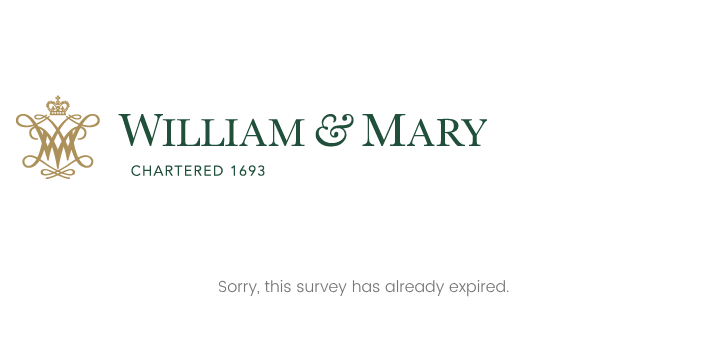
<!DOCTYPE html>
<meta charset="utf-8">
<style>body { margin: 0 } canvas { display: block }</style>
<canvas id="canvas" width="728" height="349"></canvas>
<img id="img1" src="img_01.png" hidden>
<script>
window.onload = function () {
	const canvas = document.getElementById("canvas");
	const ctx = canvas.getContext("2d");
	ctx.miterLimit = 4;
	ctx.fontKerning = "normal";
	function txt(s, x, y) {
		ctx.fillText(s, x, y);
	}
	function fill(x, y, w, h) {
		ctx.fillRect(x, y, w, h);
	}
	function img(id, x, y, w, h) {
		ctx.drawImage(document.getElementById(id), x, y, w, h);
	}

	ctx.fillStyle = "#FFFFFF";
	fill(0, 0, 728, 349);
	img("img1", 15, 95, 472, 84);
	ctx.font = "300 16px Poppins";
	ctx.fillStyle = "#757575";
	txt("Sorry, this survey has already expired.", 218, 292);
};
</script>
